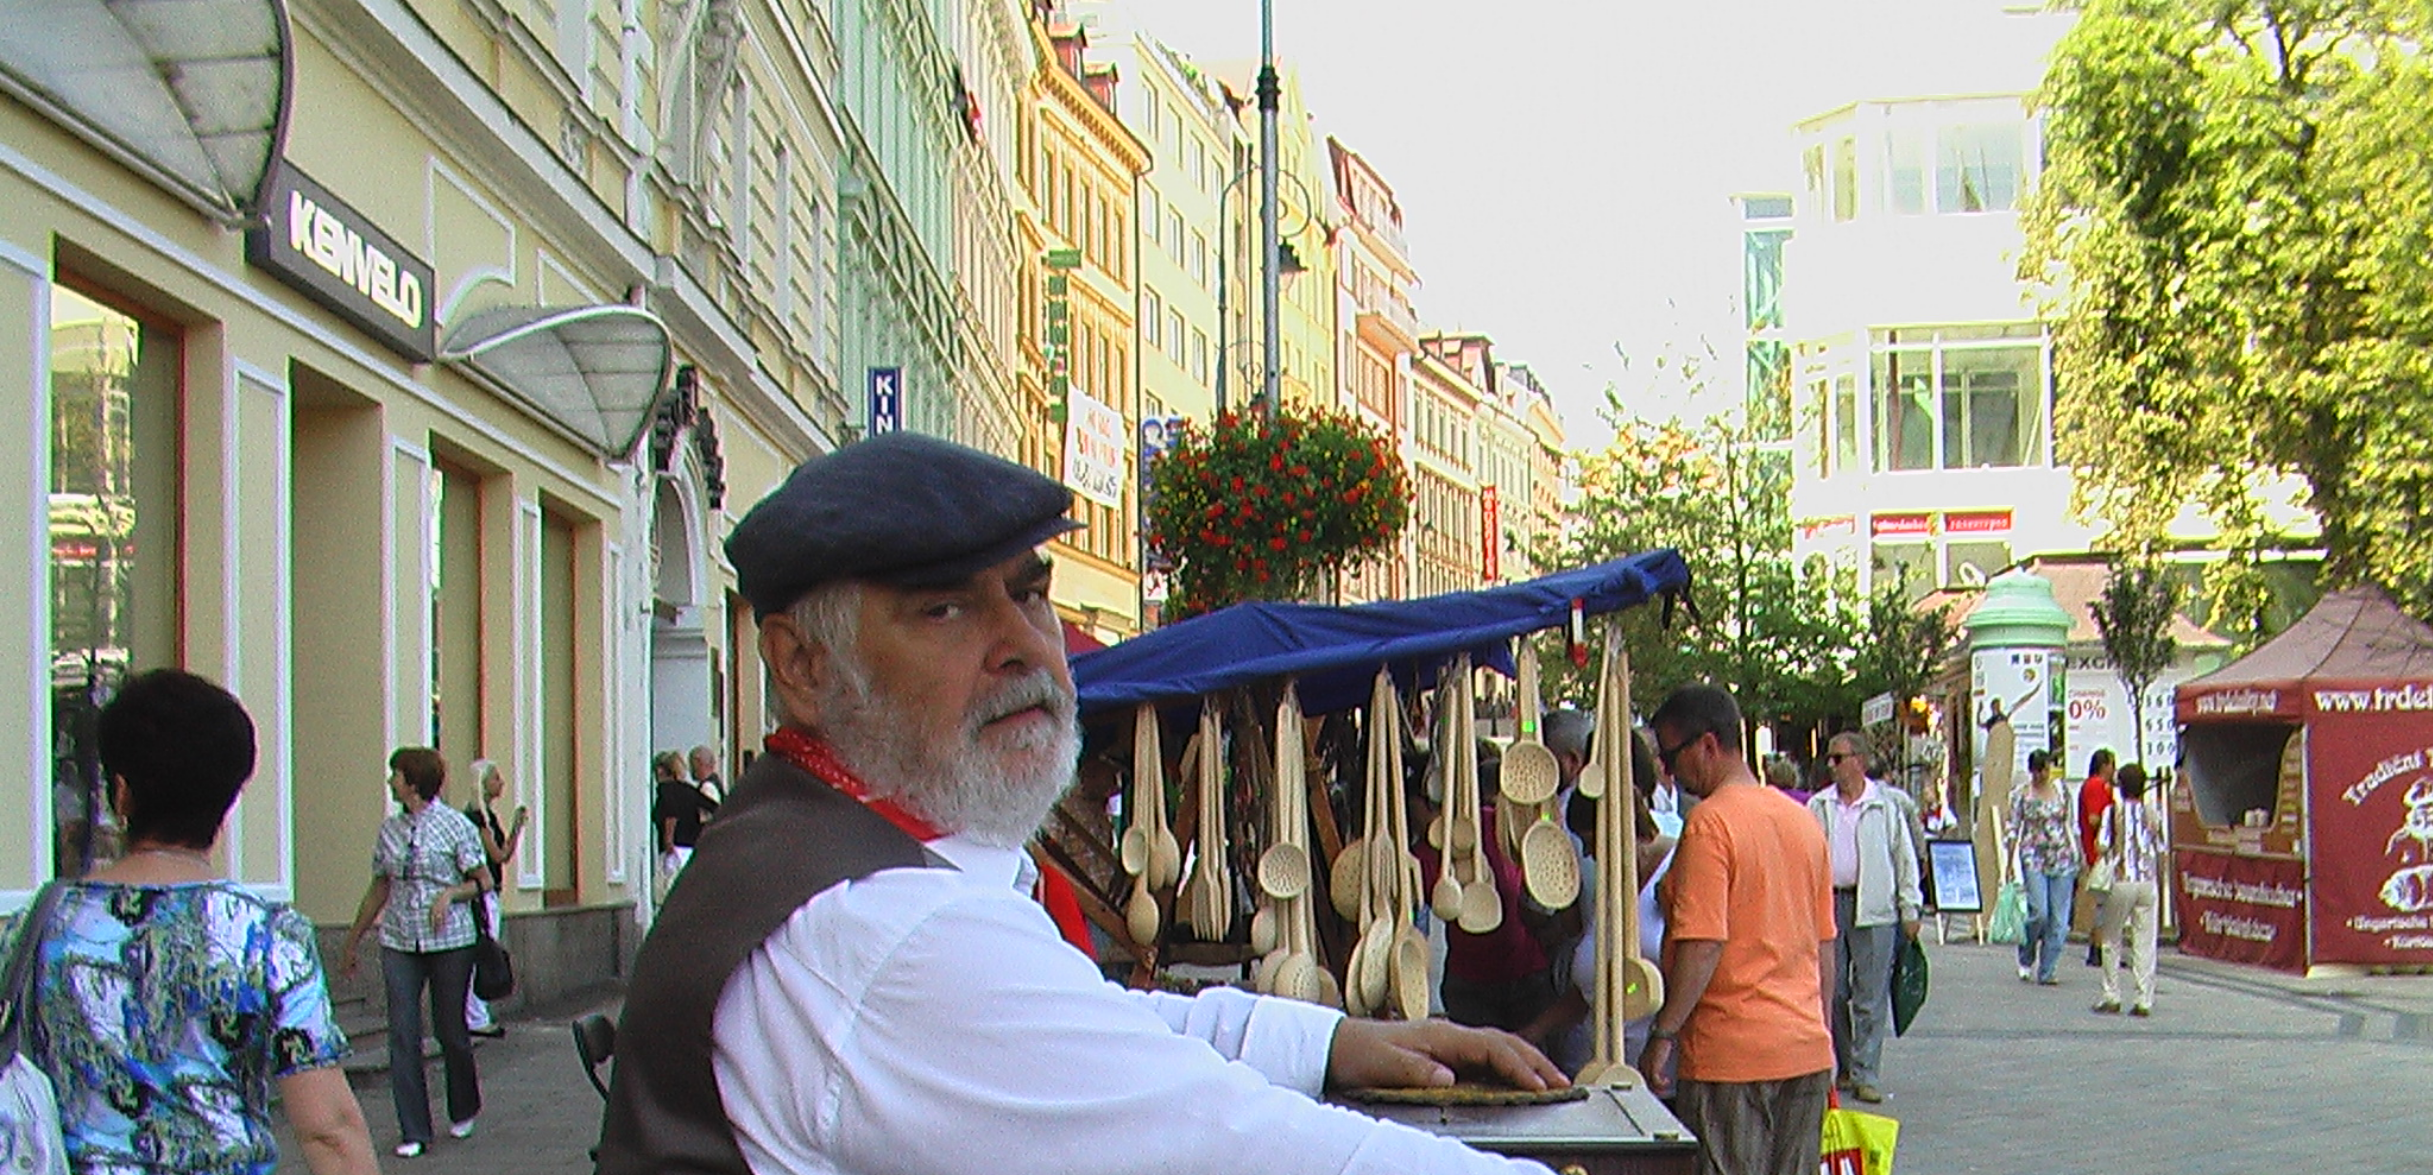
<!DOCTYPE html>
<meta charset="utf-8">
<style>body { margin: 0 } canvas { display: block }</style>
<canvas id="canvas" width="2433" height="1175"></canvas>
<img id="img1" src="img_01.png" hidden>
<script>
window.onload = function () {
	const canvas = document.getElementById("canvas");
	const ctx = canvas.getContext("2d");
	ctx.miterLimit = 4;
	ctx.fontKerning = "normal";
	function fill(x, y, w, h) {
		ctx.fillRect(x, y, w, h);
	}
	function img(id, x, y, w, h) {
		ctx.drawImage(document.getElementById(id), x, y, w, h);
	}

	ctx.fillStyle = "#FFFFFF";
	fill(0, 0, 2433, 1175);
	img("img1", 0, 0, 2433, 1175);
};
</script>
